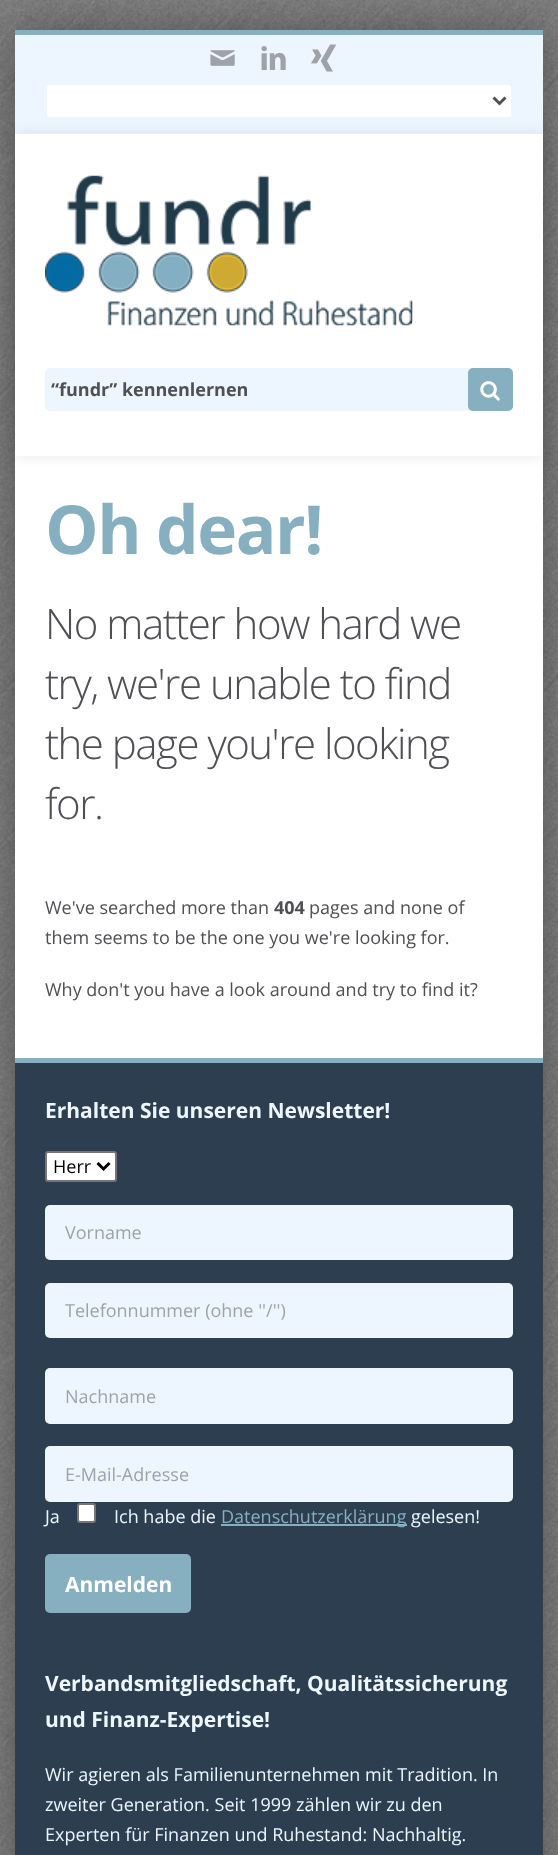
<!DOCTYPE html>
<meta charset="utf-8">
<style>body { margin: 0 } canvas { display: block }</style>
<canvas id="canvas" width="558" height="1855"></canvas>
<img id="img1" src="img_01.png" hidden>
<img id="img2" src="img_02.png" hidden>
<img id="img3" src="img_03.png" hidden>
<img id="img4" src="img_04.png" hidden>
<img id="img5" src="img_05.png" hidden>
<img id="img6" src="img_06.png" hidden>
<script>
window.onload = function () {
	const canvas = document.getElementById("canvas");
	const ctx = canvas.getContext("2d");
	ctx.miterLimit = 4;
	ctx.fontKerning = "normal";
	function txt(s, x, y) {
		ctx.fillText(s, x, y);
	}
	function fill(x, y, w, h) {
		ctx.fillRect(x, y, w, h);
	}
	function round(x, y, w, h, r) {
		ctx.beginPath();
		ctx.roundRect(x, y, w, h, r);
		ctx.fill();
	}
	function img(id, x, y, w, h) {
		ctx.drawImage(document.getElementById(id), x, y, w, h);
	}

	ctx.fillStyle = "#FFFFFF";
	fill(0, 0, 558, 1855);
	img("img1", 0, 0, 558, 1855);
	ctx.fillStyle = "rgba(0, 0, 0, 0.35)";
	ctx.filter = "blur(22.5px)";
	ctx.beginPath();
	ctx.rect(15, 30, 528, 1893);
	ctx.fill();
	ctx.filter = "none";
	ctx.fillStyle = "#FFFFFF";
	fill(15, 134, 528, 924);
	ctx.fillStyle = "#EDF6FF";
	fill(15, 35, 528, 99);
	ctx.fillStyle = "#86AFC0";
	fill(15, 30, 528, 5);
	img("img2", 210, 50, 25, 16);
	img("img3", 261, 46, 25, 24);
	img("img4", 311, 44, 26, 28);
	ctx.fillStyle = "#FFFFFF";
	ctx.beginPath();
	ctx.roundRect(46, 84, 466, 34, 4);
	ctx.fill();
	ctx.strokeStyle = "#EDF6FF";
	ctx.lineWidth = 2;
	ctx.stroke();
	ctx.beginPath();
	ctx.moveTo(493.5, 97.5);
	ctx.lineTo(499.5, 103.5);
	ctx.lineTo(505.5, 97.5);
	ctx.strokeStyle = "#4F4F54";
	ctx.lineWidth = 3;
	ctx.stroke();
	ctx.save();
	ctx.beginPath();
	ctx.moveTo(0, 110);
	ctx.lineTo(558, 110);
	ctx.lineTo(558, 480);
	ctx.lineTo(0, 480);
	ctx.closePath();
	ctx.moveTo(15, 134);
	ctx.lineTo(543, 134);
	ctx.lineTo(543, 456);
	ctx.lineTo(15, 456);
	ctx.closePath();
	ctx.clip("evenodd");
	ctx.fillStyle = "rgba(0, 0, 0, 0.09)";
	ctx.filter = "blur(7.5px)";
	ctx.beginPath();
	ctx.rect(15, 134, 528, 322);
	ctx.fill();
	ctx.filter = "none";
	ctx.restore();
	img("img5", 45, 175, 368, 151);
	ctx.fillStyle = "#EDF6FF";
	round(45, 368, 468, 43, 5);
	ctx.fillStyle = "#86AFC0";
	round(468, 368, 45, 43, 5);
	img("img6", 480, 381, 20, 20);
	ctx.fillStyle = "#2C3E50";
	fill(15, 1063, 528, 792);
	ctx.fillStyle = "#86AFC0";
	fill(15, 1058, 528, 5);
	ctx.fillStyle = "#FFFFFF";
	ctx.beginPath();
	ctx.roundRect(46, 1152, 70, 29, 2);
	ctx.fill();
	ctx.strokeStyle = "#767676";
	ctx.lineWidth = 2;
	ctx.stroke();
	ctx.beginPath();
	ctx.moveTo(97.5, 1163);
	ctx.lineTo(103.5, 1169);
	ctx.lineTo(109.5, 1163);
	ctx.strokeStyle = "#000000";
	ctx.lineWidth = 3;
	ctx.stroke();
	ctx.fillStyle = "#EDF6FF";
	round(45, 1205, 468, 55, 5);
	round(45, 1283, 468, 55, 5);
	round(45, 1368, 468, 56, 5);
	round(45, 1446, 468, 56, 5);
	ctx.fillStyle = "#FFFFFF";
	ctx.beginPath();
	ctx.roundRect(78, 1504, 17, 18, 2);
	ctx.fill();
	ctx.strokeStyle = "#767676";
	ctx.lineWidth = 2;
	ctx.stroke();
	ctx.fillStyle = "#86AFC0";
	fill(221, 1524, 186, 2);
	round(45, 1554, 146, 59, 5);
	ctx.font = "bold 18px Open Sans";
	ctx.fillStyle = "#4F4F54";
	txt("“fundr” kennenlernen", 51, 396);
	ctx.letterSpacing = "-1.5px";
	ctx.font = "bold 67.5px Open Sans";
	ctx.fillStyle = "#86AFC0";
	txt("Oh dear!", 45, 554);
	ctx.font = "300 42px Open Sans";
	ctx.fillStyle = "#4F4F54";
	txt("No matter how hard we", 45, 639);
	txt("try, we're unable to find", 45, 699);
	txt("the page you're looking", 45, 759);
	txt("for.", 45, 819);
	ctx.letterSpacing = "0px";
	ctx.font = "18px Open Sans";
	txt("We've searched more than", 45, 914);
	ctx.font = "bold 18px Open Sans";
	txt("404", 274, 914);
	ctx.font = "18px Open Sans";
	txt("pages and none of", 309, 914);
	txt("them seems to be the one you we're looking for.", 45, 944);
	txt("Why don't you have a look around and try to find it?", 45, 996);
	ctx.font = "bold 21px Open Sans";
	ctx.fillStyle = "#EDF6FF";
	txt("Erhalten Sie unseren Newsletter!", 45, 1118);
	ctx.font = "18px Open Sans";
	ctx.fillStyle = "#000000";
	txt("Herr", 53, 1173);
	ctx.fillStyle = "#9EA3AA";
	txt("Vorname", 65, 1239);
	txt("Telefonnummer (ohne ''/'')", 65, 1317);
	txt("Nachname", 65, 1403);
	txt("E-Mail-Adresse", 65, 1481);
	ctx.fillStyle = "#EDF6FF";
	txt("Ja", 45, 1523);
	txt("Ich habe die", 114, 1523);
	ctx.fillStyle = "#86AFC0";
	txt("Datenschutzerklärung", 221, 1523);
	ctx.fillStyle = "#EDF6FF";
	txt("gelesen!", 411, 1523);
	ctx.font = "bold 21px Open Sans";
	ctx.fillStyle = "#FFFFFF";
	txt("Anmelden", 65, 1592);
	ctx.fillStyle = "#EDF6FF";
	txt("Verbandsmitgliedschaft, Qualitätssicherung", 45, 1691);
	txt("und Finanz-Expertise!", 45, 1727);
	ctx.font = "18px Open Sans";
	txt("Wir agieren als Familienunternehmen mit Tradition. In", 45, 1781);
	txt("zweiter Generation. Seit 1999 zählen wir zu den", 45, 1811);
	txt("Experten für Finanzen und Ruhestand: Nachhaltig.", 45, 1841);
};
</script>
